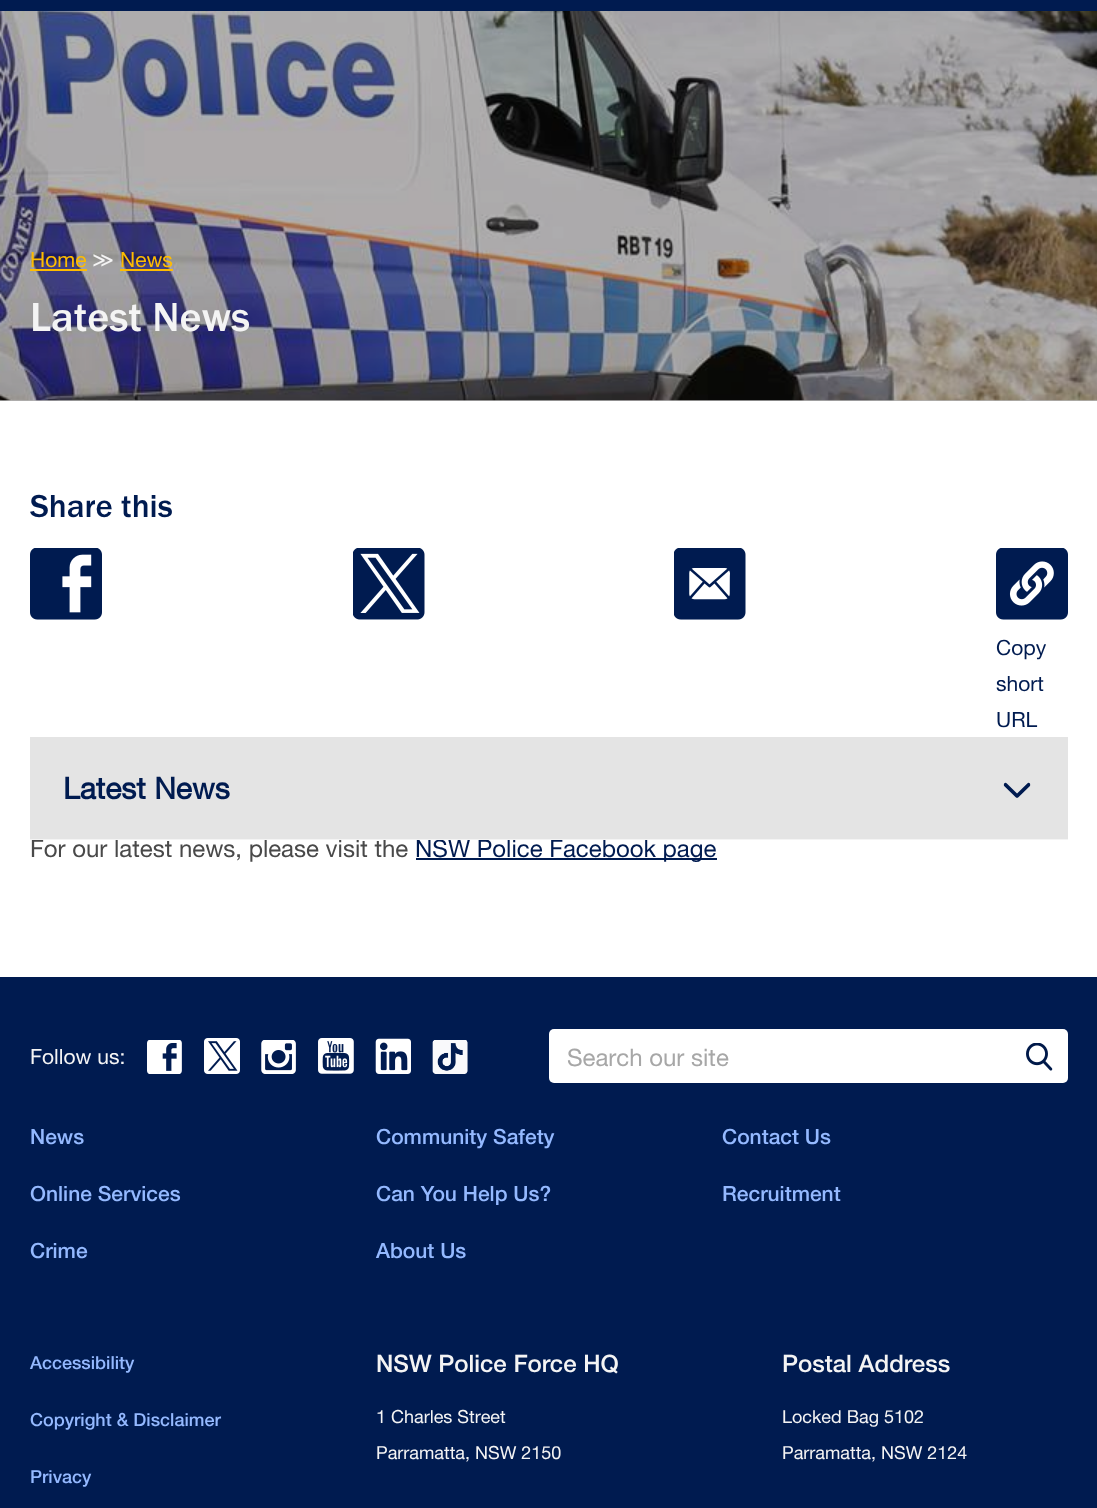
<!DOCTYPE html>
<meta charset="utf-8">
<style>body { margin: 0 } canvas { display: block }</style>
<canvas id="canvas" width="1097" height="1508"></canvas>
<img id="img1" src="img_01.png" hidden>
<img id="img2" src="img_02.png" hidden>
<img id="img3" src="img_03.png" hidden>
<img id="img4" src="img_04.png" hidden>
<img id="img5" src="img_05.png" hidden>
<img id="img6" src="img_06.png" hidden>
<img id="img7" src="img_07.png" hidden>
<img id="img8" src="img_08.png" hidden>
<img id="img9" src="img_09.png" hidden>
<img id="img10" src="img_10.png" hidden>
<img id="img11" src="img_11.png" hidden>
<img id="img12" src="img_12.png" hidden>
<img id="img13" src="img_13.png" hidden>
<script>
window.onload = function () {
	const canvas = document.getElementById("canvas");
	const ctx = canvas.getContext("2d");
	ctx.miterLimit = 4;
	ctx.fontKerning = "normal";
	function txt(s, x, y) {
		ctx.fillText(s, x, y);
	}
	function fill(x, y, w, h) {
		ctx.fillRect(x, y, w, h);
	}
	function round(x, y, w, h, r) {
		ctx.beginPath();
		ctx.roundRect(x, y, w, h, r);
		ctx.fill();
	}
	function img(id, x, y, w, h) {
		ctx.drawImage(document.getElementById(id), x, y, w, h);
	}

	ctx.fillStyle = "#FFFFFF";
	fill(0, 0, 1097, 1508);
	ctx.fillStyle = "#B3B3B3";
	fill(0, 400, 1097, 1);
	ctx.fillStyle = "#001B50";
	fill(0, 0, 1097, 11);
	img("img1", 0, 11, 1097, 390);
	ctx.fillStyle = "#FFBC00";
	fill(30, 269, 57, 2);
	fill(120, 269, 53, 2);
	img("img2", 30, 548, 72, 72);
	img("img3", 353, 548, 72, 72);
	img("img4", 674, 548, 72, 72);
	img("img5", 996, 548, 72, 72);
	ctx.fillStyle = "#E4E4E4";
	fill(30, 737, 1038, 102);
	img("img6", 1003, 782, 28, 16);
	ctx.fillStyle = "#001B50";
	fill(416, 858, 301, 2);
	fill(0, 977, 1097, 531);
	img("img7", 147, 1040, 35, 34);
	img("img8", 204, 1038, 36, 36);
	img("img9", 261, 1040, 35, 34);
	img("img10", 318, 1038, 36, 36);
	img("img11", 375, 1038, 36, 36);
	img("img12", 432, 1040, 36, 34);
	ctx.fillStyle = "#FFFFFF";
	round(549, 1029, 519, 54, 5);
	img("img13", 1026, 1043, 27, 28);
	ctx.font = "21px Helvetica Neue";
	ctx.fillStyle = "#FFBC00";
	txt("Home", 30, 267);
	ctx.font = "21px DejaVu Sans";
	ctx.fillStyle = "#F4F4F4";
	txt("≫", 92, 267);
	ctx.font = "21px Helvetica Neue";
	ctx.fillStyle = "#FFBC00";
	txt("News", 120, 267);
	ctx.font = "42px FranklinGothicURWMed";
	ctx.fillStyle = "#F4F4F4";
	txt("Latest News", 30, 331);
	ctx.font = "33px FranklinGothicURWMed";
	ctx.fillStyle = "#001B50";
	txt("Share this", 30, 517);
	ctx.font = "21px Helvetica Neue";
	txt("Copy", 996, 655);
	txt("short", 996, 691);
	txt("URL", 996, 727);
	ctx.font = "bold 30px Helvetica Neue";
	txt("Latest News", 63, 799);
	ctx.font = "24px Helvetica Neue";
	ctx.fillStyle = "#494949";
	txt("For our latest news, please visit the", 30, 857);
	ctx.fillStyle = "#001B50";
	txt("NSW Police Facebook page", 415, 857);
	ctx.fillStyle = "#F4F4F4";
	fill(30, 839, 1038, 1);
	ctx.font = "21px Helvetica Neue";
	txt("Follow us:", 30, 1064);
	ctx.font = "24px Helvetica Neue";
	ctx.fillStyle = "#A7A7A7";
	txt("Search our site", 567, 1066);
	ctx.font = "500 21px Helvetica Neue";
	ctx.fillStyle = "#94B9FF";
	txt("News", 30, 1144);
	txt("Community Safety", 376, 1144);
	txt("Contact Us", 722, 1144);
	txt("Online Services", 30, 1201);
	txt("Can You Help Us?", 376, 1201);
	txt("Recruitment", 722, 1201);
	txt("Crime", 30, 1258);
	txt("About Us", 376, 1258);
	ctx.font = "500 18px Helvetica Neue";
	txt("Accessibility", 30, 1369);
	txt("Copyright & Disclaimer", 30, 1426);
	txt("Privacy", 30, 1483);
	ctx.font = "500 24px Helvetica Neue";
	ctx.fillStyle = "#F4F4F4";
	txt("NSW Police Force HQ", 376, 1372);
	ctx.font = "18px Helvetica Neue";
	txt("1 Charles Street", 376, 1423);
	txt("Parramatta, NSW 2150", 376, 1459);
	ctx.font = "500 24px Helvetica Neue";
	txt("Postal Address", 782, 1372);
	ctx.font = "18px Helvetica Neue";
	txt("Locked Bag 5102", 782, 1423);
	txt("Parramatta, NSW 2124", 782, 1459);
};
</script>
